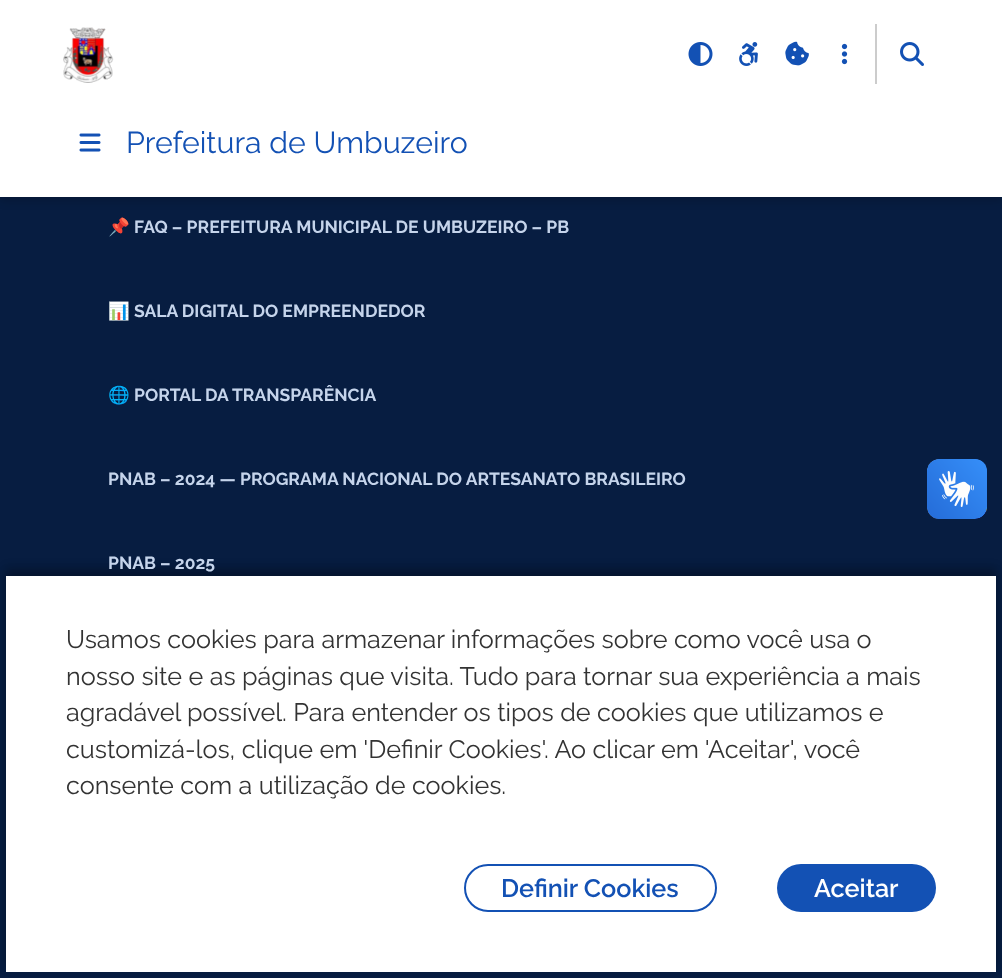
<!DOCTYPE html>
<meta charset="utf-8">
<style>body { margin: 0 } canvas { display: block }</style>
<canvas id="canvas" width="1002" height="978"></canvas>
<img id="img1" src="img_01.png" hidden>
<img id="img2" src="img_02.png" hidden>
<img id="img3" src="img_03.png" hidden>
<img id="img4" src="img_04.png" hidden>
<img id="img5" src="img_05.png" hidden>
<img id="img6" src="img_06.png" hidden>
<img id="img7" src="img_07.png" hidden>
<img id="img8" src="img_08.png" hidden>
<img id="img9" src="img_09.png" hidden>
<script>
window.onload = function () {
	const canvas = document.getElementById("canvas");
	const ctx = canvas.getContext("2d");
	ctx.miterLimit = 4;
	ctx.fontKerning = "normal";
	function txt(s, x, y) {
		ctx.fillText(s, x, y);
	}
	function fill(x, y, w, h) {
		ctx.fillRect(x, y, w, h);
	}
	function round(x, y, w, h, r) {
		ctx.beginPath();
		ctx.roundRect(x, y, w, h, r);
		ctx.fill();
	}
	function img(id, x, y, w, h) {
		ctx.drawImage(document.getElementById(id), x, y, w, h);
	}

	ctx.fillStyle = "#071D41";
	fill(0, 0, 1002, 978);
	ctx.fillStyle = "rgba(0, 0, 0, 0.16)";
	ctx.filter = "blur(4.5px)";
	ctx.beginPath();
	ctx.rect(0, 5, 1002, 196);
	ctx.fill();
	ctx.filter = "none";
	ctx.fillStyle = "#FFFFFF";
	fill(0, 0, 1002, 197);
	img("img1", 63, 27, 51, 56);
	img("img2", 688, 42, 25, 24);
	img("img3", 739, 42, 19, 24);
	img("img4", 785, 41, 24, 25);
	img("img5", 841, 43, 7, 22);
	ctx.fillStyle = "#CCCCCC";
	fill(875, 24, 2, 60);
	img("img6", 900, 42, 24, 24);
	img("img7", 79, 133, 22, 19);
	img("img8", 927, 459, 60, 60);
	img("img9", 927, 459, 60, 60);
	ctx.fillStyle = "rgba(0, 0, 0, 0.16)";
	ctx.filter = "blur(4.5px)";
	ctx.beginPath();
	ctx.rect(6, 567, 990, 396);
	ctx.fill();
	ctx.filter = "none";
	ctx.fillStyle = "#FFFFFF";
	fill(6, 576, 990, 396);
	ctx.save();
	ctx.beginPath();
	ctx.moveTo(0, 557);
	ctx.lineTo(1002, 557);
	ctx.lineTo(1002, 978);
	ctx.lineTo(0, 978);
	ctx.closePath();
	ctx.moveTo(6, 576);
	ctx.lineTo(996, 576);
	ctx.lineTo(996, 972);
	ctx.lineTo(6, 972);
	ctx.closePath();
	ctx.clip("evenodd");
	ctx.fillStyle = "rgba(0, 0, 0, 0.16)";
	ctx.filter = "blur(4.5px)";
	ctx.beginPath();
	ctx.rect(6, 572, 990, 396);
	ctx.fill();
	ctx.filter = "none";
	ctx.restore();
	ctx.beginPath();
	ctx.roundRect(465, 865, 251, 46, 23);
	ctx.strokeStyle = "#1351B4";
	ctx.lineWidth = 2;
	ctx.stroke();
	ctx.fillStyle = "#1351B4";
	round(777, 864, 159, 48, 24);
	ctx.font = "30.25px Raleway";
	txt("Prefeitura de Umbuzeiro", 126, 153);
	ctx.font = "bold 17.5px Noto Color Emoji";
	ctx.fillStyle = "#C5D4EB";
	txt("📌", 108, 233);
	ctx.font = "bold 17.5px Raleway";
	txt("FAQ – PREFEITURA MUNICIPAL DE UMBUZEIRO – PB", 134, 233);
	ctx.font = "bold 17.5px Noto Color Emoji";
	txt("📊", 108, 317);
	ctx.font = "bold 17.5px Raleway";
	txt("SALA DIGITAL DO EMPREENDEDOR", 134, 317);
	ctx.font = "bold 17.5px Noto Color Emoji";
	txt("🌐", 108, 401);
	ctx.font = "bold 17.5px Raleway";
	txt("PORTAL DA TRANSPARÊNCIA", 134, 401);
	txt("PNAB – 2024 — PROGRAMA NACIONAL DO ARTESANATO BRASILEIRO", 108, 485);
	txt("PNAB – 2025", 108, 569);
	ctx.font = "25.2px Raleway";
	ctx.fillStyle = "#333333";
	txt("Usamos cookies para armazenar informações sobre como você usa o", 66, 648);
	txt("nosso site e as páginas que visita. Tudo para tornar sua experiência a mais", 66, 685);
	txt("agradável possível. Para entender os tipos de cookies que utilizamos e", 66, 721);
	txt("customizá-los, clique em 'Definir Cookies'. Ao clicar em 'Aceitar', você", 66, 758);
	txt("consente com a utilização de cookies.", 66, 794);
	ctx.font = "600 25.2px Raleway";
	ctx.fillStyle = "#1351B4";
	txt("Definir Cookies", 501, 897);
	ctx.fillStyle = "#FFFFFF";
	txt("Aceitar", 814, 897);
};
</script>
